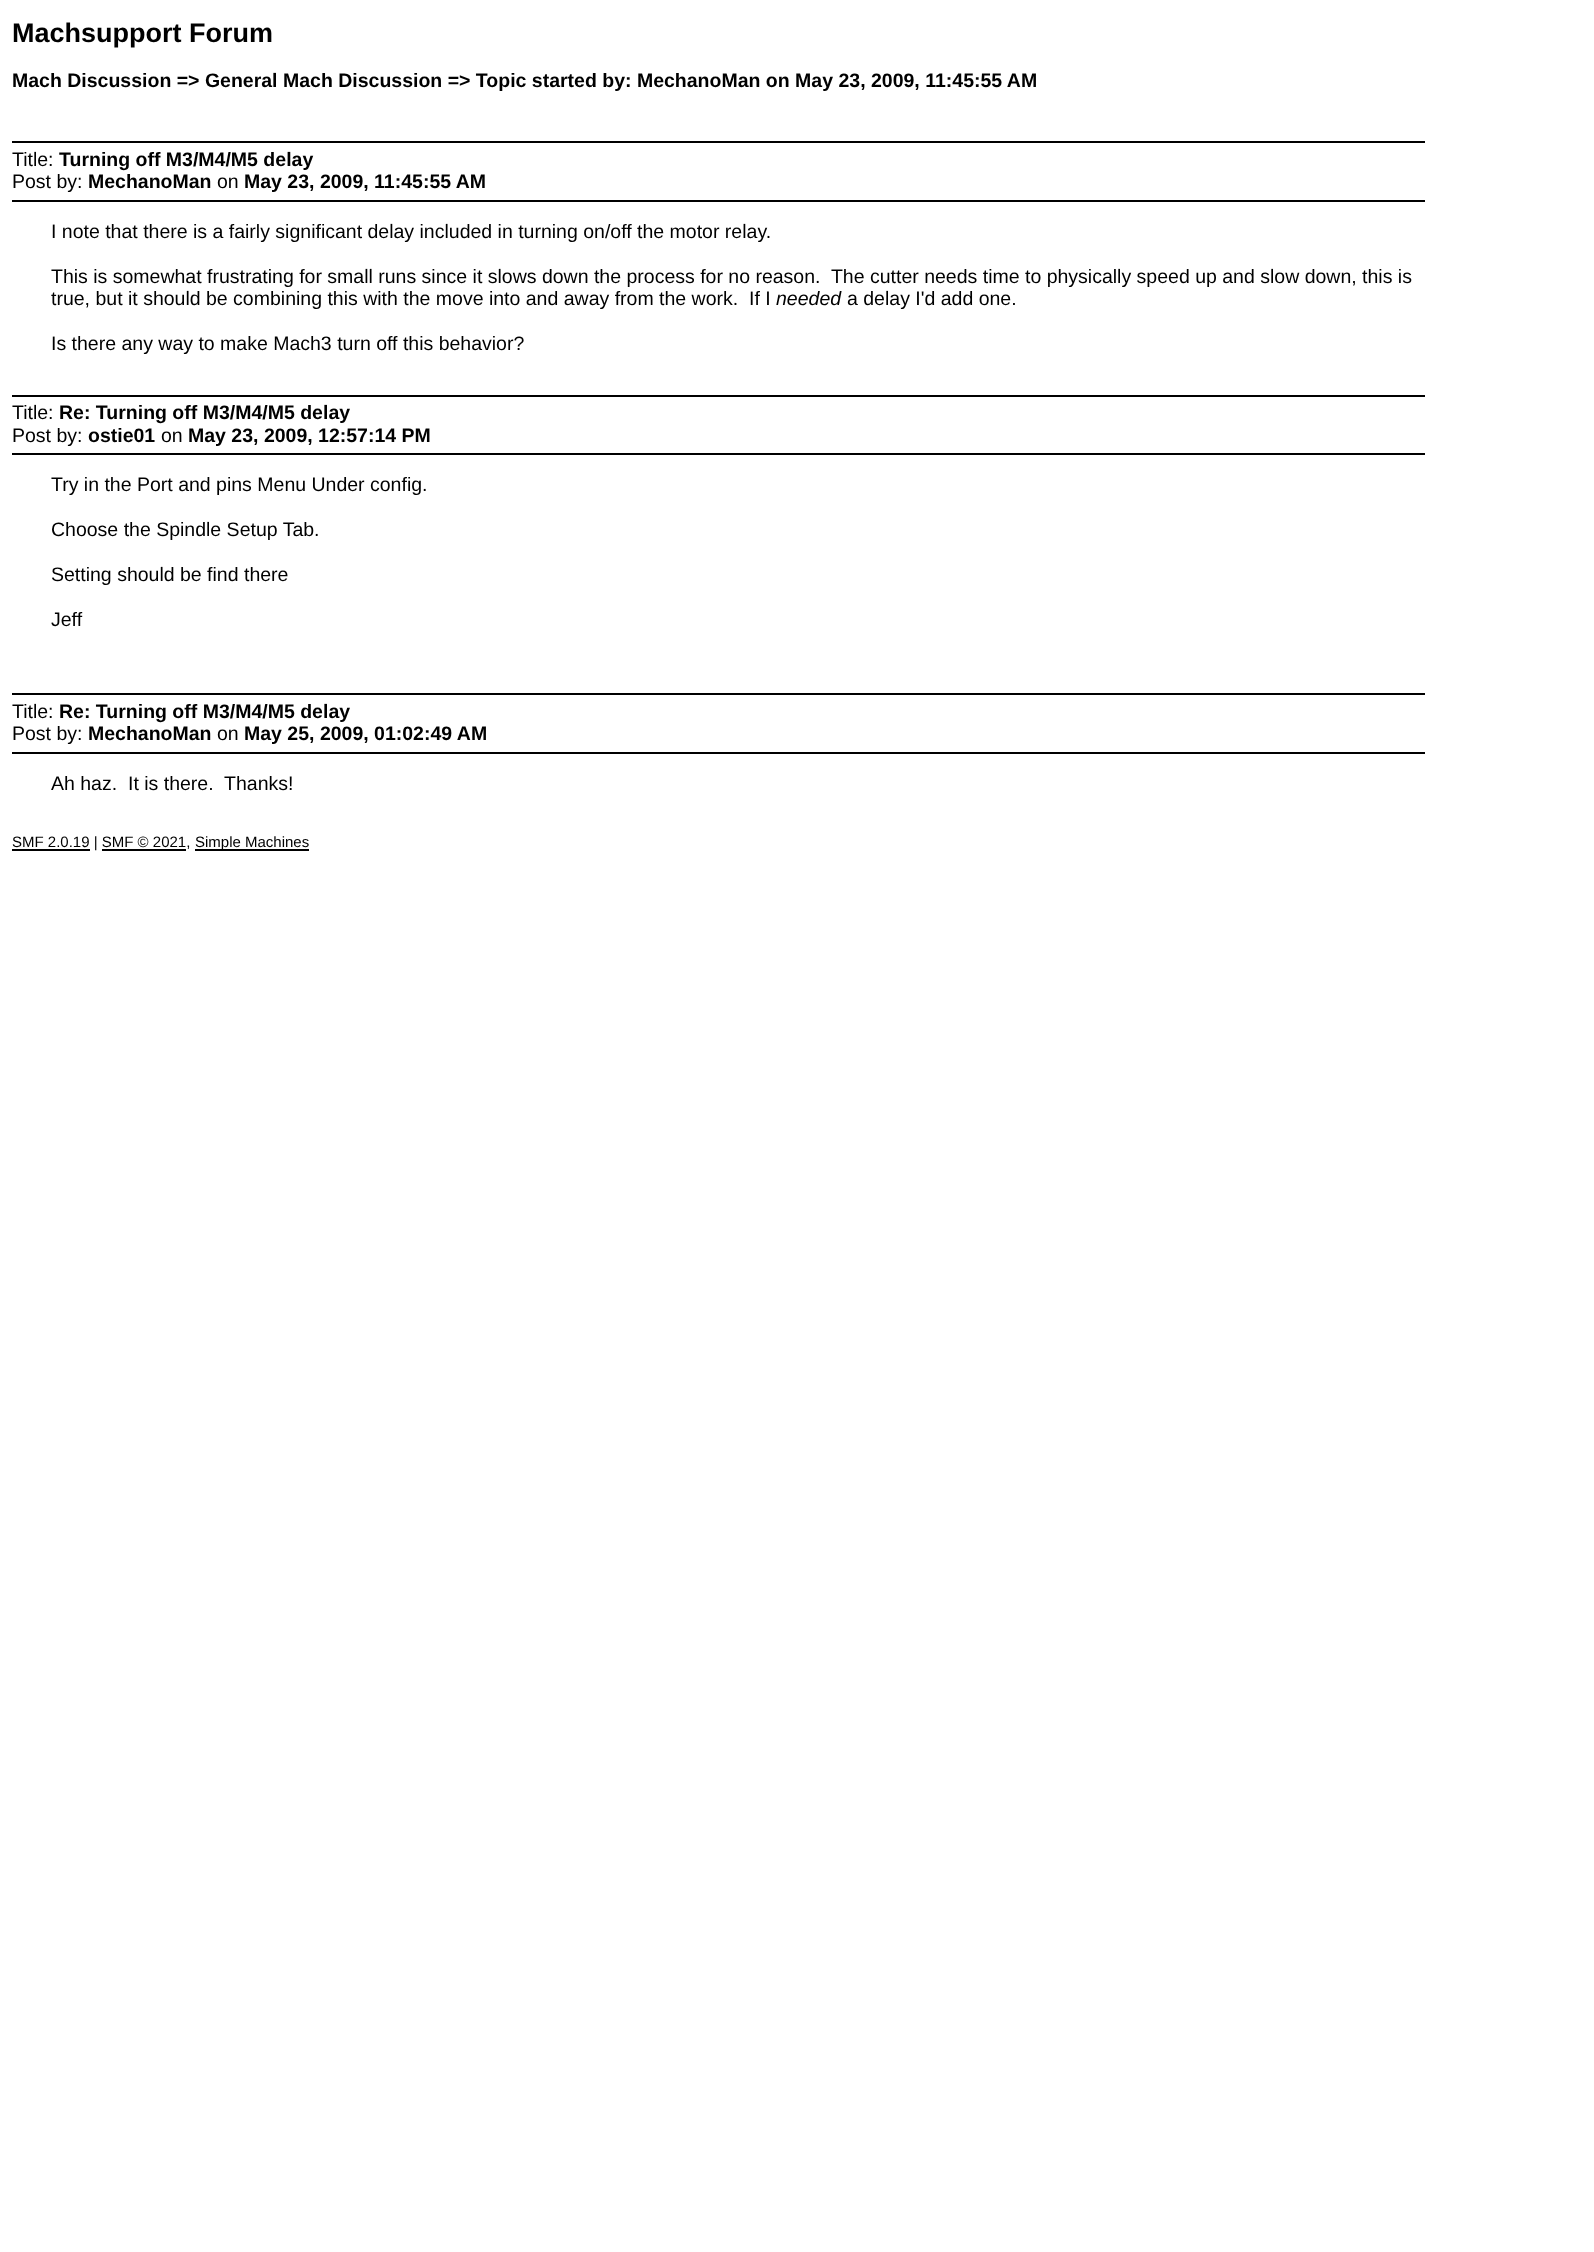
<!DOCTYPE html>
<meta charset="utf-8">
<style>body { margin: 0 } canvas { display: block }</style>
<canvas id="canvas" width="1594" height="2252"></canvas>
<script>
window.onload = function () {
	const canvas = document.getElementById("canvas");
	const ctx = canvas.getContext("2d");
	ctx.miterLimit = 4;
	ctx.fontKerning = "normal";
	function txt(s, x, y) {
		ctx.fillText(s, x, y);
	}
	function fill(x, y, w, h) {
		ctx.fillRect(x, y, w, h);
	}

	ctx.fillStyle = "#FFFFFF";
	fill(0, 0, 1594, 2252);
	ctx.fillStyle = "#000000";
	fill(12, 141, 1413, 2);
	fill(12, 200, 1413, 2);
	fill(12, 395, 1413, 2);
	fill(12, 453, 1413, 2);
	fill(12, 693, 1413, 2);
	fill(12, 752, 1413, 2);
	fill(12, 849, 78, 2);
	fill(102, 849, 84, 2);
	fill(195, 849, 114, 2);
	ctx.font = "bold 27px Liberation Sans";
	txt("Machsupport Forum", 12, 42);
	ctx.font = "bold 19.5px Liberation Sans";
	txt("Mach Discussion => General Mach Discussion => Topic started by: MechanoMan on May 23, 2009, 11:45:55 AM", 12, 87);
	ctx.font = "19.5px Liberation Sans";
	txt("Title:", 12, 166);
	ctx.font = "bold 19.5px Liberation Sans";
	txt("Turning off M3/M4/M5 delay", 59, 166);
	ctx.font = "19.5px Liberation Sans";
	txt("Post by:", 12, 188);
	ctx.font = "bold 19.5px Liberation Sans";
	txt("MechanoMan", 88, 188);
	ctx.font = "19.5px Liberation Sans";
	txt("on", 217, 188);
	ctx.font = "bold 19.5px Liberation Sans";
	txt("May 23, 2009, 11:45:55 AM", 244, 188);
	ctx.font = "19.5px Liberation Sans";
	txt("I note that there is a fairly significant delay included in turning on/off the motor relay.", 51, 238);
	txt("This is somewhat frustrating for small runs since it slows down the process for no reason.  The cutter needs time to physically speed up and slow down, this is", 51, 283);
	txt("true, but it should be combining this with the move into and away from the work.  If I", 51, 305);
	ctx.font = "italic 19.5px Liberation Sans";
	txt("needed", 776, 305);
	ctx.font = "19.5px Liberation Sans";
	txt("a delay I'd add one.", 847, 305);
	txt("Is there any way to make Mach3 turn off this behavior?", 51, 350);
	txt("Title:", 12, 419);
	ctx.font = "bold 19.5px Liberation Sans";
	txt("Re: Turning off M3/M4/M5 delay", 59, 419);
	ctx.font = "19.5px Liberation Sans";
	txt("Post by:", 12, 442);
	ctx.font = "bold 19.5px Liberation Sans";
	txt("ostie01", 88, 442);
	ctx.font = "19.5px Liberation Sans";
	txt("on", 161, 442);
	ctx.font = "bold 19.5px Liberation Sans";
	txt("May 23, 2009, 12:57:14 PM", 188, 442);
	ctx.font = "19.5px Liberation Sans";
	txt("Try in the Port and pins Menu Under config.", 51, 491);
	txt("Choose the Spindle Setup Tab.", 51, 536);
	txt("Setting should be find there", 51, 581);
	txt("Jeff", 51, 626);
	txt("Title:", 12, 718);
	ctx.font = "bold 19.5px Liberation Sans";
	txt("Re: Turning off M3/M4/M5 delay", 59, 718);
	ctx.font = "19.5px Liberation Sans";
	txt("Post by:", 12, 740);
	ctx.font = "bold 19.5px Liberation Sans";
	txt("MechanoMan", 88, 740);
	ctx.font = "19.5px Liberation Sans";
	txt("on", 217, 740);
	ctx.font = "bold 19.5px Liberation Sans";
	txt("May 25, 2009, 01:02:49 AM", 244, 740);
	ctx.font = "19.5px Liberation Sans";
	txt("Ah haz.  It is there.  Thanks!", 51, 790);
	ctx.font = "15px Liberation Sans";
	txt("SMF 2.0.19 | SMF © 2021,", 12, 847);
	txt("Simple Machines", 195, 847);
};
</script>
